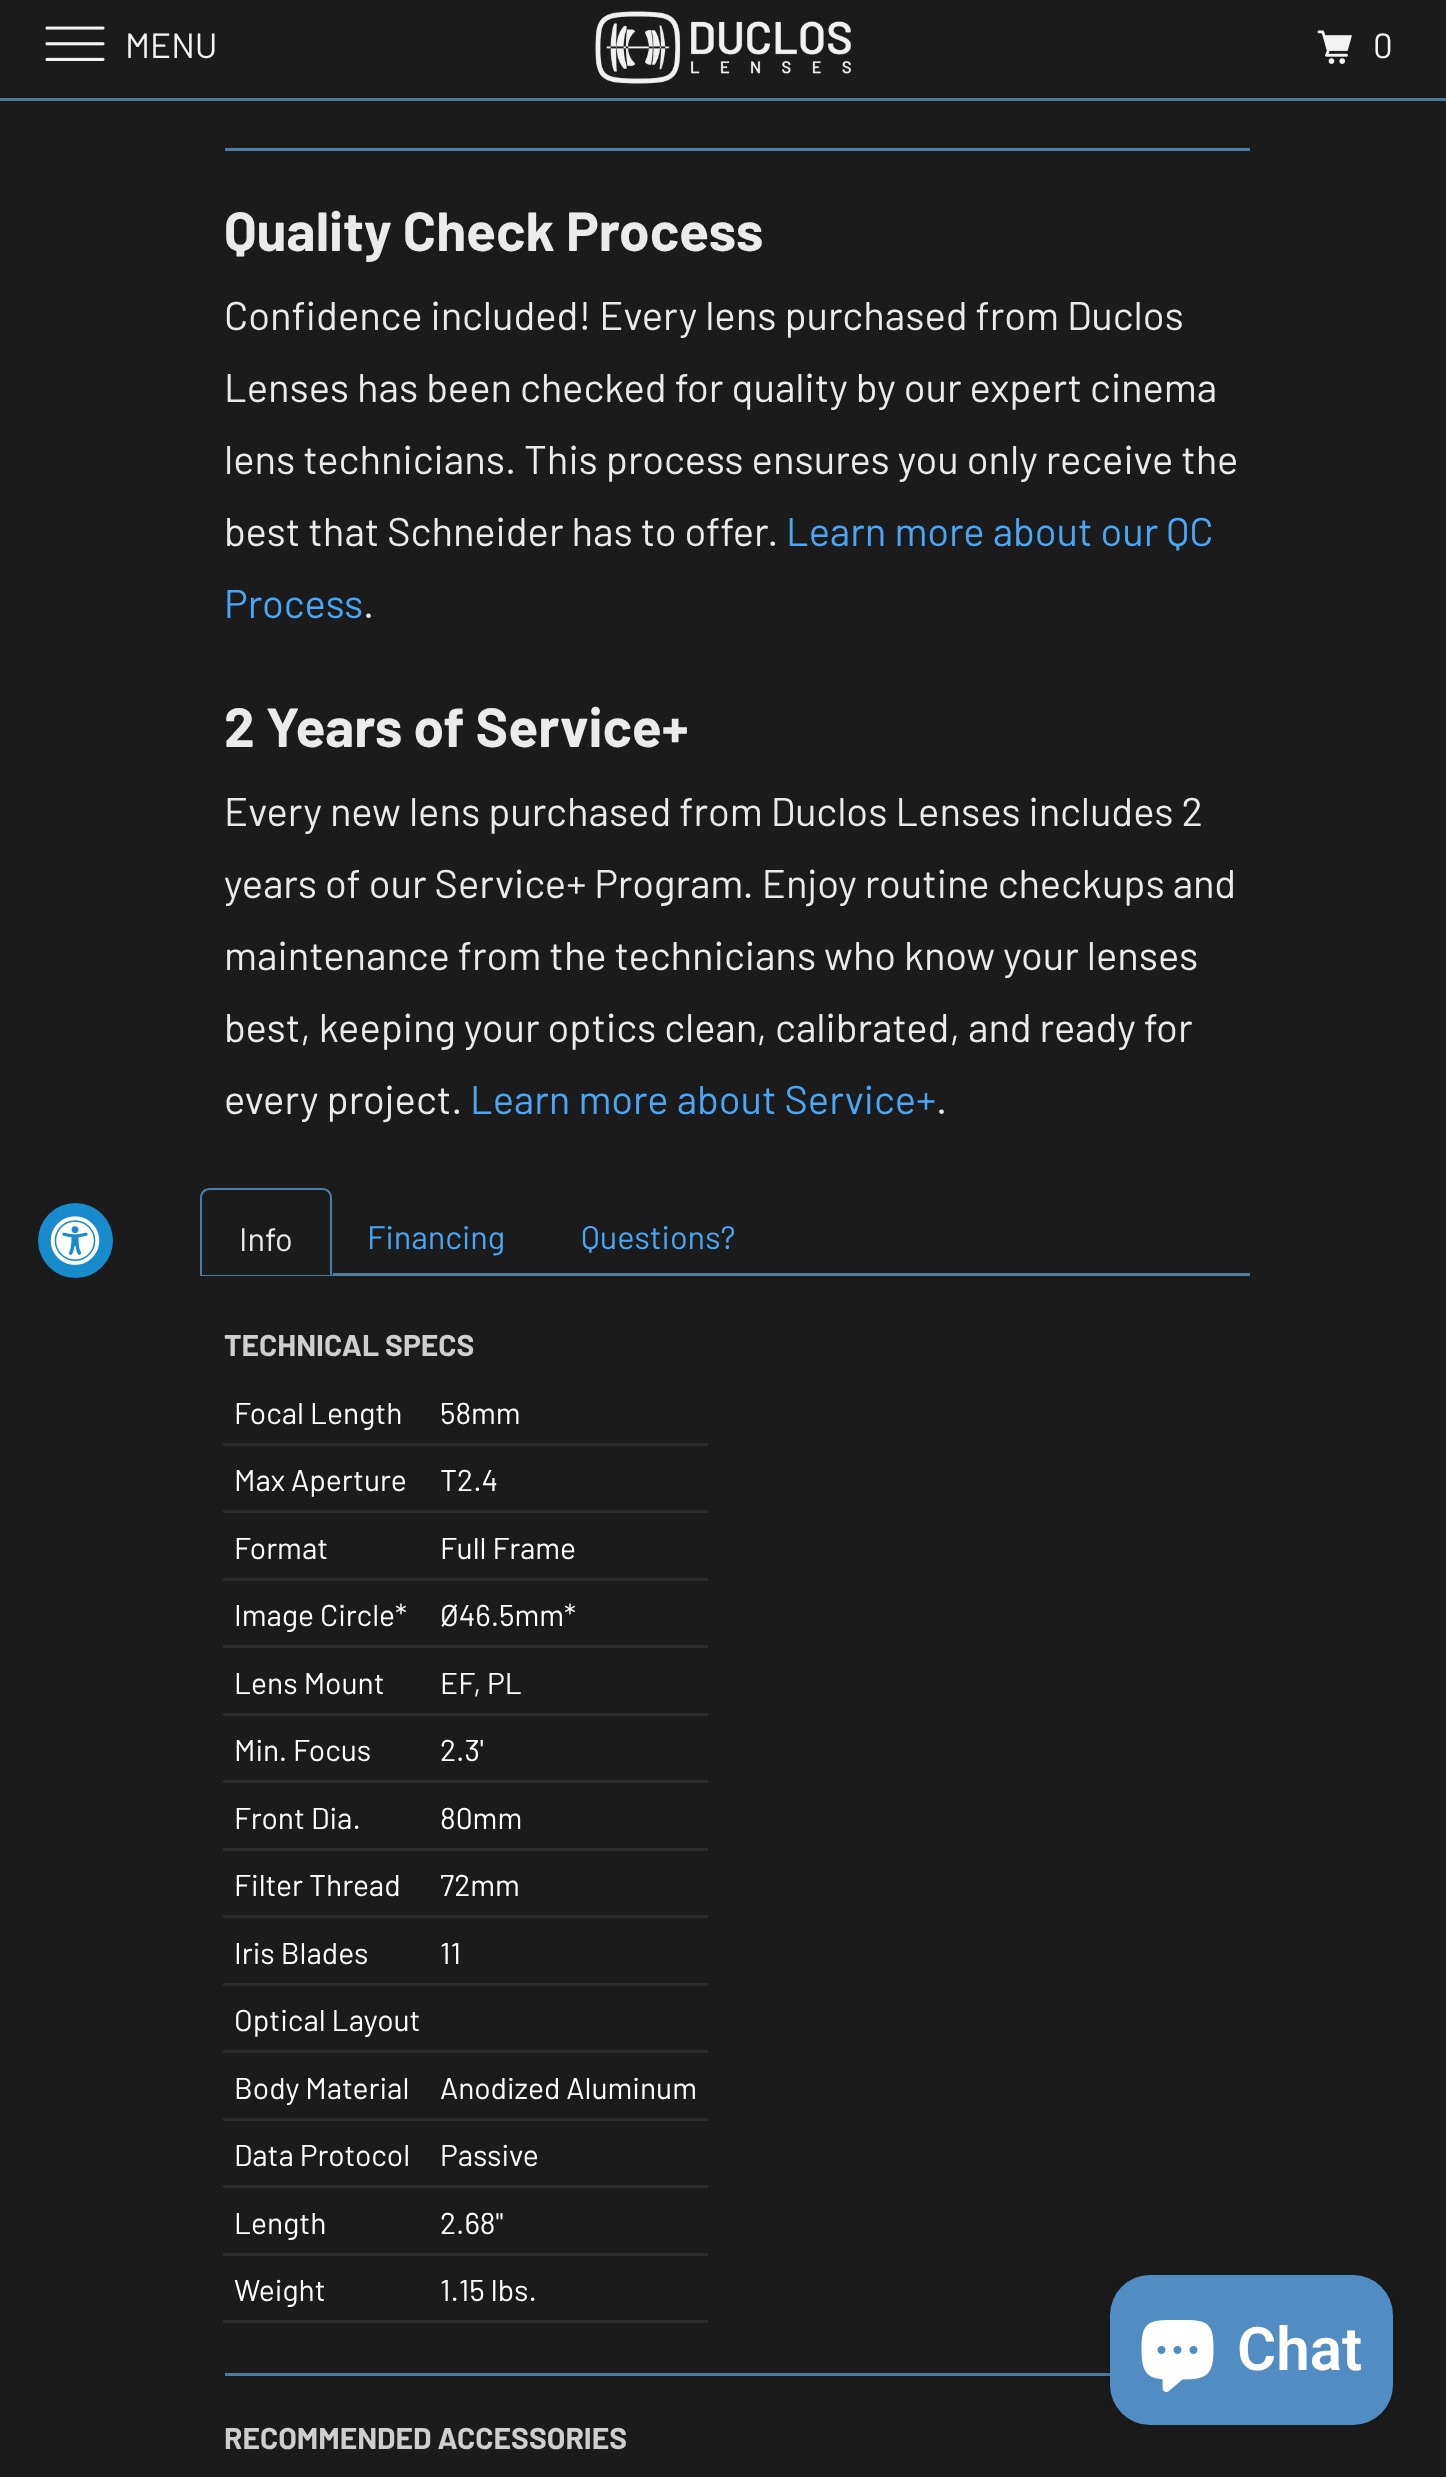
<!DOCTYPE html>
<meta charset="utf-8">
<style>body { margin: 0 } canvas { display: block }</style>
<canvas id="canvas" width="1446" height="2477"></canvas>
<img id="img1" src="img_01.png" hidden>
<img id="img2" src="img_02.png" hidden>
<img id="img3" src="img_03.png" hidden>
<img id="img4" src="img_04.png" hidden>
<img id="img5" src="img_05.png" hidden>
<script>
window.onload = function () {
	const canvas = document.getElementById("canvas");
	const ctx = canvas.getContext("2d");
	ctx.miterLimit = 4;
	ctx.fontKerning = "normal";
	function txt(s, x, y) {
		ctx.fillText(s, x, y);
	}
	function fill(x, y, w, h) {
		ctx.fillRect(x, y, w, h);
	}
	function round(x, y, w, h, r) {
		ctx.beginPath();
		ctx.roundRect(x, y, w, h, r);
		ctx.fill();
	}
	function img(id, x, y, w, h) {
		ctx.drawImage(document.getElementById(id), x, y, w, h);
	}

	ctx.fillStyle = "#1B1B1C";
	fill(0, 0, 1446, 2477);
	ctx.fillStyle = "#4B779C";
	fill(0, 98, 1446, 3);
	img("img1", 45, 26, 60, 35);
	img("img2", 595, 11, 256, 73);
	img("img3", 1317, 30, 35, 34);
	ctx.fillStyle = "#188BCD";
	ctx.beginPath();
	ctx.arc(75.5, 1240.5, 37.5, 0, Math.PI * 2);
	ctx.fill();
	img("img4", 50, 1216, 50, 49);
	ctx.fillStyle = "#4D7CA3";
	fill(225, 148, 1025, 3);
	fill(200, 1273, 1050, 3);
	ctx.fillStyle = "#1B1B1C";
	ctx.beginPath();
	ctx.roundRect(200, 1188, 133, 87, [10, 10, 0, 0]);
	ctx.fill();
	ctx.fillStyle = "#4D7CA3";
	ctx.beginPath();
	ctx.moveTo(210, 1188);
	ctx.lineTo(322, 1188);
	ctx.bezierCurveTo(328, 1188, 332, 1192, 332, 1198);
	ctx.lineTo(332, 1275);
	ctx.lineTo(200, 1275);
	ctx.lineTo(200, 1198);
	ctx.bezierCurveTo(200, 1192, 204, 1188, 210, 1188);
	ctx.closePath();
	ctx.moveTo(210, 1190);
	ctx.lineTo(322, 1190);
	ctx.bezierCurveTo(327, 1190, 330, 1193, 330, 1198);
	ctx.lineTo(330, 1275);
	ctx.lineTo(202, 1275);
	ctx.lineTo(202, 1198);
	ctx.bezierCurveTo(202, 1193, 206, 1190, 210, 1190);
	ctx.closePath();
	ctx.fill("evenodd");
	ctx.fillStyle = "#2B2B2B";
	fill(223, 1443, 485, 3);
	fill(223, 1510, 485, 3);
	fill(223, 1578, 485, 3);
	fill(223, 1645, 485, 3);
	fill(223, 1713, 485, 3);
	fill(223, 1780, 485, 3);
	fill(223, 1848, 485, 3);
	fill(223, 1915, 485, 3);
	fill(223, 1983, 485, 3);
	fill(223, 2050, 485, 3);
	fill(223, 2118, 485, 3);
	fill(223, 2185, 485, 3);
	fill(223, 2253, 485, 3);
	fill(223, 2320, 485, 3);
	ctx.fillStyle = "#4D7CA3";
	fill(225, 2373, 885, 3);
	ctx.fillStyle = "rgba(0, 0, 0, 0.15)";
	ctx.filter = "blur(6px)";
	ctx.beginPath();
	ctx.roundRect(1110, 2275, 283, 150, 40);
	ctx.fill();
	ctx.filter = "none";
	ctx.fillStyle = "#518DC2";
	round(1110, 2275, 283, 150, 40);
	img("img5", 1141, 2320, 73, 72);
	ctx.font = "35px Barlow";
	ctx.fillStyle = "#F4F4F4";
	txt("MENU", 125, 58);
	txt("0", 1373, 58);
	ctx.font = "bold 55px Barlow";
	ctx.fillStyle = "#EBEBEB";
	txt("Quality Check Process", 224, 251);
	ctx.font = "40px Barlow";
	txt("Confidence included! Every lens purchased from Duclos", 224, 330);
	txt("Lenses has been checked for quality by our expert cinema", 224, 402);
	txt("lens technicians. This process ensures you only receive the", 224, 474);
	txt("best that Schneider has to offer.", 224, 546);
	ctx.fillStyle = "#4AA7F6";
	txt("Learn more about our QC", 786, 546);
	txt("Process", 224, 618);
	ctx.fillStyle = "#EBEBEB";
	txt(".", 363, 618);
	ctx.font = "bold 55px Barlow";
	txt("2 Years of Service+", 224, 747);
	ctx.font = "40px Barlow";
	txt("Every new lens purchased from Duclos Lenses includes 2", 224, 826);
	txt("years of our Service+ Program. Enjoy routine checkups and", 224, 898);
	txt("maintenance from the technicians who know your lenses", 224, 970);
	txt("best, keeping your optics clean, calibrated, and ready for", 224, 1042);
	txt("every project.", 224, 1114);
	ctx.fillStyle = "#4AA7F6";
	txt("Learn more about Service+", 470, 1114);
	ctx.fillStyle = "#EBEBEB";
	txt(".", 936, 1114);
	ctx.font = "32.5px Barlow";
	txt("Info", 239, 1251);
	ctx.fillStyle = "#4AA7F6";
	txt("Financing", 367, 1249);
	txt("Questions?", 581, 1249);
	ctx.font = "bold 30px Barlow";
	ctx.fillStyle = "#CFCFCF";
	txt("TECHNICAL SPECS", 224, 1356);
	ctx.font = "30px Barlow";
	ctx.fillStyle = "#FFFFFF";
	txt("Focal Length", 234, 1424);
	txt("58mm", 440, 1424);
	txt("Max Aperture", 234, 1491);
	txt("T2.4", 440, 1491);
	txt("Format", 234, 1559);
	txt("Full Frame", 440, 1559);
	txt("Image Circle*", 234, 1626);
	txt("Ø46.5mm*", 440, 1626);
	txt("Lens Mount", 234, 1694);
	txt("EF, PL", 440, 1694);
	txt("Min. Focus", 234, 1761);
	txt("2.3'", 440, 1761);
	txt("Front Dia.", 234, 1829);
	txt("80mm", 440, 1829);
	txt("Filter Thread", 234, 1896);
	txt("72mm", 440, 1896);
	txt("Iris Blades", 234, 1964);
	txt("11", 440, 1964);
	txt("Optical Layout", 234, 2031);
	txt("Body Material", 234, 2099);
	txt("Anodized Aluminum", 440, 2099);
	txt("Data Protocol", 234, 2166);
	txt("Passive", 440, 2166);
	txt("Length", 234, 2234);
	txt("2.68\"", 440, 2234);
	txt("Weight", 234, 2301);
	txt("1.15 lbs.", 440, 2301);
	ctx.font = "bold 30px Barlow";
	ctx.fillStyle = "#CFCFCF";
	txt("RECOMMENDED ACCESSORIES", 224, 2449);
	ctx.font = "600 60px Roboto";
	ctx.fillStyle = "#FFFFFF";
	txt("Chat", 1237, 2370);
};
</script>
